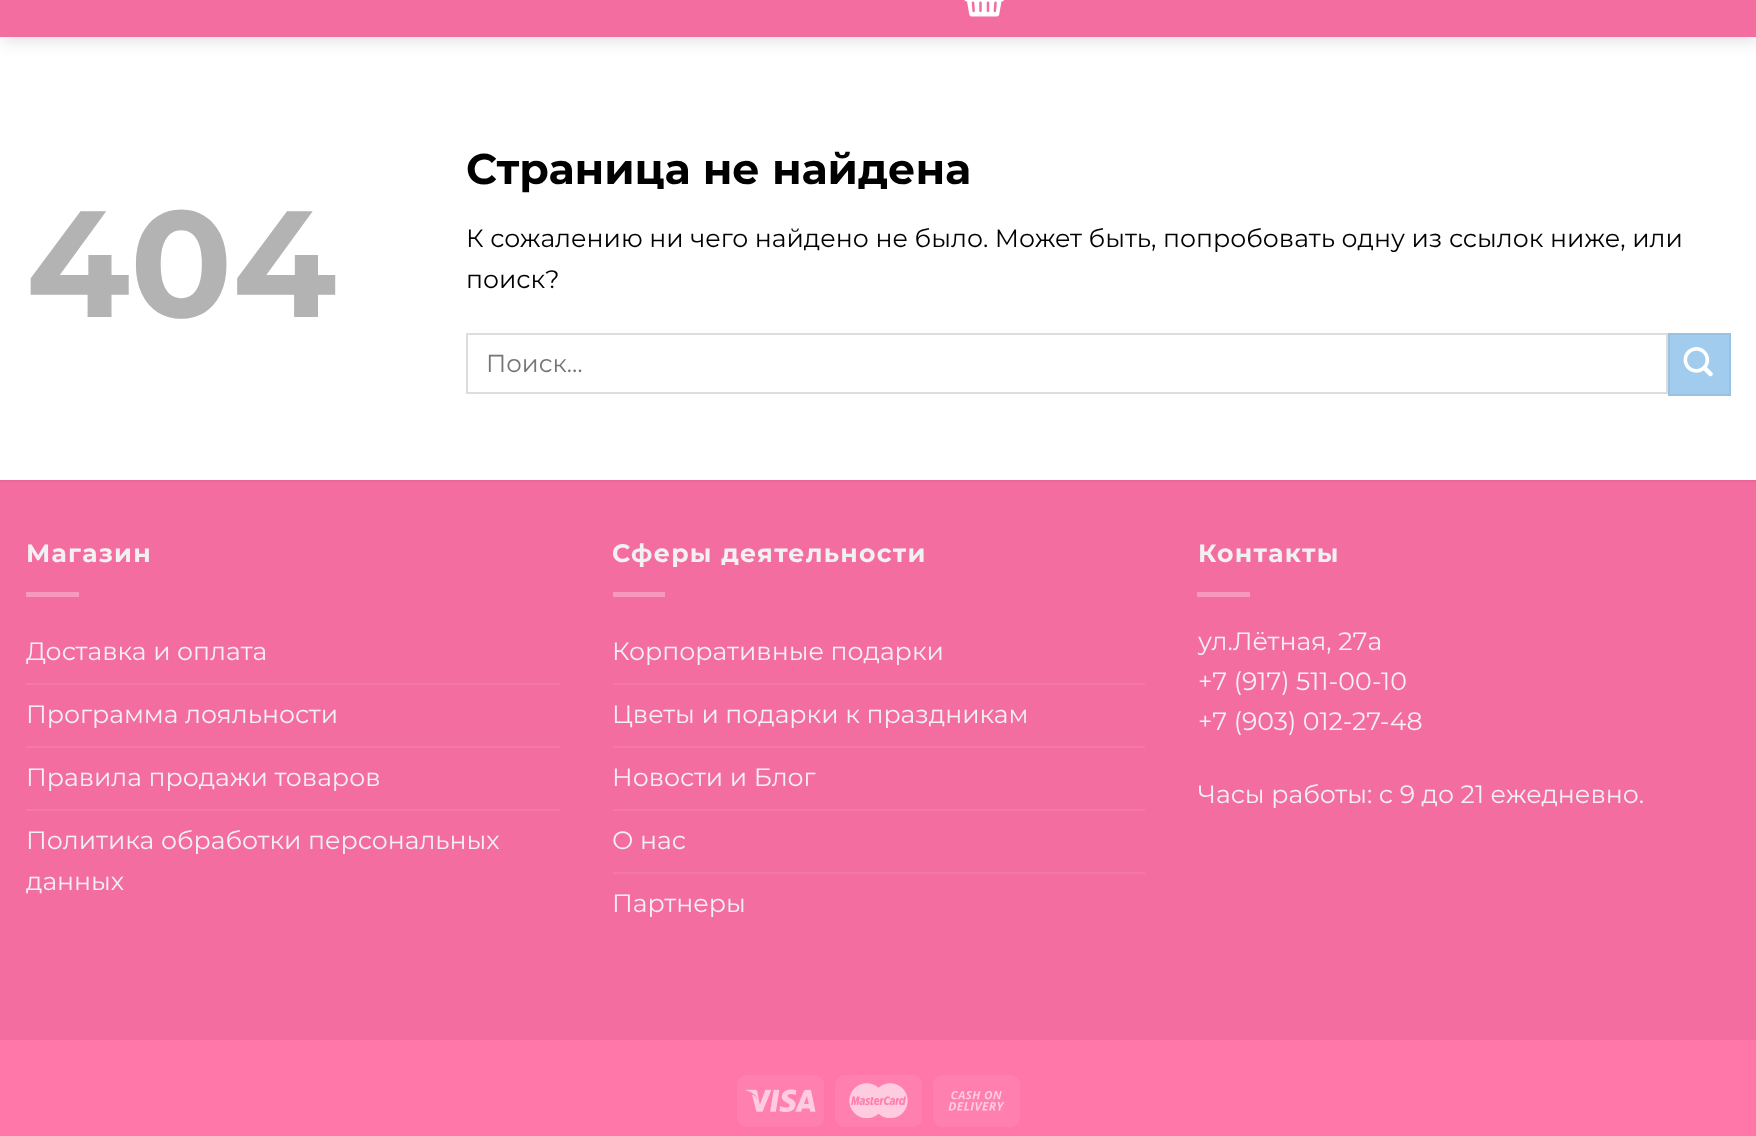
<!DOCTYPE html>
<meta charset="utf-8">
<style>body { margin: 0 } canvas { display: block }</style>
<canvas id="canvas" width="1756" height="1136"></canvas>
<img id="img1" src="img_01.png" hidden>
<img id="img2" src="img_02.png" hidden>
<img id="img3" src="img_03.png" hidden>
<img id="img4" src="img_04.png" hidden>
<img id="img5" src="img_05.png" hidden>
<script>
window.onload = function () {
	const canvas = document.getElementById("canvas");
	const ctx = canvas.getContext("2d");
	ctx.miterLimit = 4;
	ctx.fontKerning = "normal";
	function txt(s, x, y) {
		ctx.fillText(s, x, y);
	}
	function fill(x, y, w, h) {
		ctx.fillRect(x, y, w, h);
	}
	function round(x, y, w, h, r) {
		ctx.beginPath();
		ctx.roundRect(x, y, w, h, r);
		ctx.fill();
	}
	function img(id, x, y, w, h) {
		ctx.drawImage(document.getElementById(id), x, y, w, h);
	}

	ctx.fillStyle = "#FFFFFF";
	fill(0, 0, 1756, 1136);
	ctx.fillStyle = "rgba(0, 0, 0, 0.15)";
	ctx.filter = "blur(9px)";
	ctx.beginPath();
	ctx.rect(2, -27, 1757, 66);
	ctx.fill();
	ctx.filter = "none";
	ctx.fillStyle = "#F36DA0";
	fill(0, 0, 1756, 37);
	img("img1", 964, 0, 40, 17);
	ctx.strokeStyle = "#DDDDDD";
	ctx.lineWidth = 2;
	ctx.strokeRect(467, 334, 1200, 59);
	ctx.fillStyle = "#A1CCEE";
	ctx.beginPath();
	ctx.rect(1669, 334, 61, 61);
	ctx.fill();
	ctx.strokeStyle = "#99C2E2";
	ctx.stroke();
	img("img2", 1683, 347, 30, 30);
	ctx.fillStyle = "#F36DA0";
	fill(0, 482, 1756, 558);
	ctx.fillStyle = "#E76898";
	fill(0, 480, 1756, 2);
	ctx.fillStyle = "#F799BD";
	fill(26, 592, 53, 5);
	ctx.fillStyle = "#F479A8";
	fill(26, 683, 534, 2);
	fill(26, 746, 534, 2);
	fill(26, 809, 534, 2);
	ctx.fillStyle = "#F799BD";
	fill(613, 592, 52, 5);
	ctx.fillStyle = "#F479A8";
	fill(613, 683, 532, 2);
	fill(613, 746, 532, 2);
	fill(613, 809, 532, 2);
	fill(613, 872, 532, 2);
	ctx.fillStyle = "#F799BD";
	fill(1197, 592, 53, 5);
	ctx.fillStyle = "#FF77A9";
	fill(0, 1040, 1756, 96);
	ctx.fillStyle = "#FF7FAE";
	round(737, 1075, 87, 52, 9);
	img("img3", 746, 1089, 70, 24);
	round(835, 1075, 87, 52, 9);
	img("img4", 849, 1083, 59, 35);
	round(933, 1075, 87, 52, 9);
	img("img5", 948, 1091, 57, 20);
	ctx.font = "bold 151px Montserrat";
	ctx.fillStyle = "#B3B3B3";
	txt("404", 26, 317);
	ctx.font = "bold 42.8px Montserrat";
	ctx.fillStyle = "#000000";
	txt("Страница не найдена", 466, 184);
	ctx.font = "25.2px Montserrat";
	txt("К сожалению ни чего найдено не было. Может быть, попробовать одну из ссылок ниже, или", 466, 247);
	txt("поиск?", 466, 288);
	ctx.font = "24.5px Montserrat";
	ctx.fillStyle = "#757575";
	txt("Поиск…", 486, 372);
	ctx.letterSpacing = "1.25px";
	ctx.font = "bold 25.2px Montserrat";
	ctx.fillStyle = "#F1F1F1";
	txt("Магазин", 26, 562);
	ctx.letterSpacing = "0px";
	ctx.font = "25.2px Montserrat";
	txt("Доставка и оплата", 26, 660);
	txt("Программа лояльности", 26, 723);
	txt("Правила продажи товаров", 26, 786);
	txt("Политика обработки персональных", 26, 849);
	txt("данных", 26, 890);
	ctx.letterSpacing = "1.25px";
	ctx.font = "bold 25.2px Montserrat";
	txt("Сферы деятельности", 612, 562);
	ctx.letterSpacing = "0px";
	ctx.font = "25.2px Montserrat";
	txt("Корпоративные подарки", 612, 660);
	txt("Цветы и подарки к праздникам", 612, 723);
	txt("Новости и Блог", 612, 786);
	txt("О нас", 612, 849);
	txt("Партнеры", 612, 912);
	ctx.letterSpacing = "1.25px";
	ctx.font = "bold 25.2px Montserrat";
	txt("Контакты", 1198, 562);
	ctx.letterSpacing = "0px";
	ctx.font = "25.2px Montserrat";
	txt("ул.Лётная, 27а", 1198, 650);
	txt("+7 (917) 511-00-10", 1198, 690);
	txt("+7 (903) 012-27-48", 1198, 730);
	txt("Часы работы: с 9 до 21 ежедневно.", 1198, 803);
};
</script>
